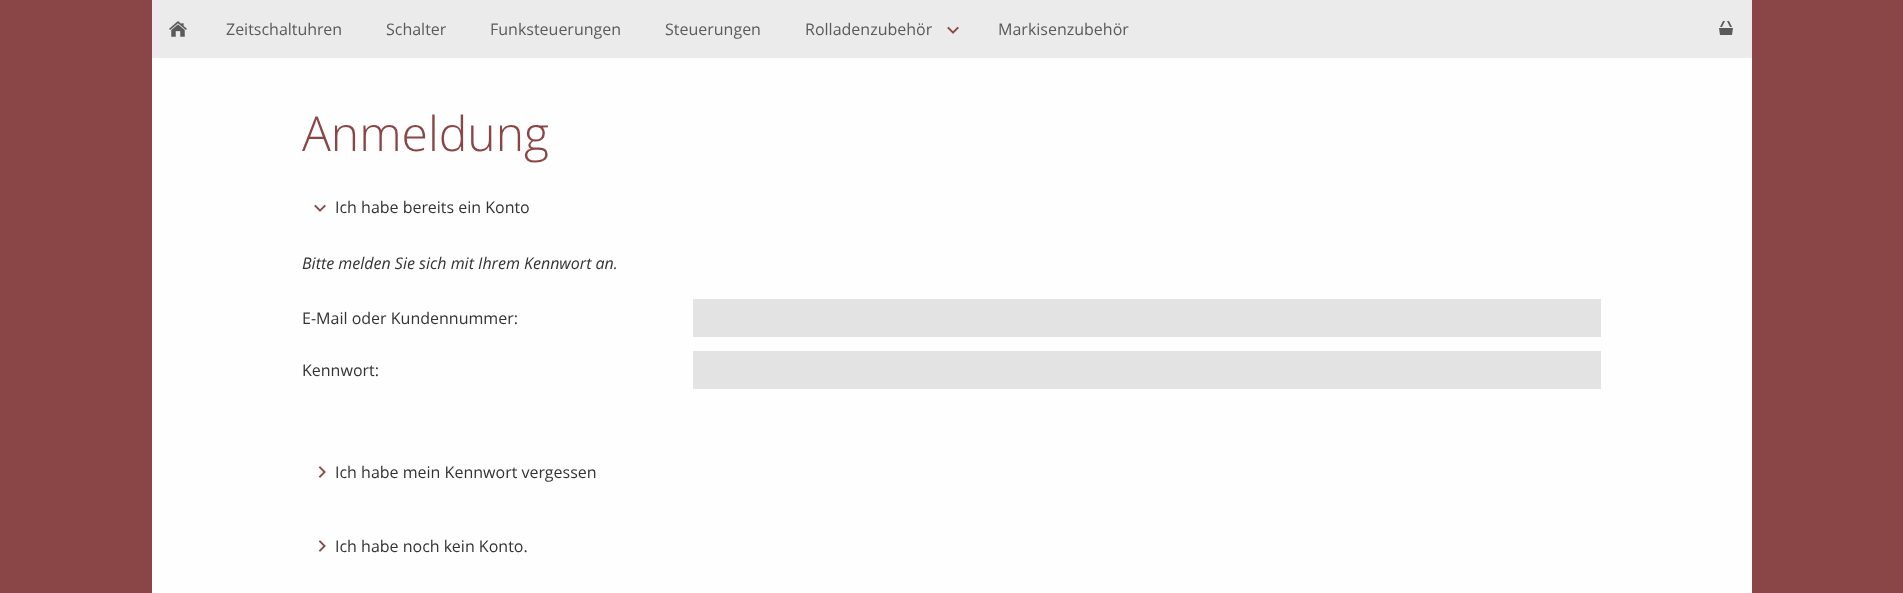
<!DOCTYPE html>
<meta charset="utf-8">
<style>body { margin: 0 } canvas { display: block }</style>
<canvas id="canvas" width="1903" height="593"></canvas>
<img id="img1" src="img_01.png" hidden>
<img id="img2" src="img_02.png" hidden>
<img id="img3" src="img_03.png" hidden>
<img id="img4" src="img_04.png" hidden>
<img id="img5" src="img_05.png" hidden>
<script>
window.onload = function () {
	const canvas = document.getElementById("canvas");
	const ctx = canvas.getContext("2d");
	ctx.miterLimit = 4;
	ctx.fontKerning = "normal";
	function txt(s, x, y) {
		ctx.fillText(s, x, y);
	}
	function fill(x, y, w, h) {
		ctx.fillRect(x, y, w, h);
	}
	function img(id, x, y, w, h) {
		ctx.drawImage(document.getElementById(id), x, y, w, h);
	}

	ctx.fillStyle = "#8A4646";
	fill(0, 0, 1903, 593);
	ctx.fillStyle = "#FEFEFE";
	fill(152, 58, 1600, 535);
	ctx.fillStyle = "#EBEBEB";
	fill(152, 0, 1600, 58);
	img("img1", 169, 21, 18, 16);
	img("img2", 947, 26, 12, 8);
	img("img3", 1719, 21, 14, 14);
	img("img4", 314, 204, 12, 8);
	ctx.fillStyle = "#E3E3E3";
	fill(693, 299, 908, 38);
	fill(693, 351, 908, 38);
	img("img5", 318, 466, 8, 12);
	img("img5", 318, 540, 8, 12);
	ctx.font = "16px Open Sans";
	ctx.fillStyle = "#5A5A5A";
	txt("Zeitschaltuhren", 226, 35);
	txt("Schalter", 386, 35);
	txt("Funksteuerungen", 490, 35);
	txt("Steuerungen", 665, 35);
	txt("Rolladenzubehör", 805, 35);
	txt("Markisenzubehör", 998, 35);
	ctx.font = "300 48px Open Sans";
	ctx.fillStyle = "#8A4646";
	txt("Anmeldung", 302, 151);
	ctx.font = "16px Open Sans";
	ctx.fillStyle = "#333333";
	txt("Ich habe bereits ein Konto", 335, 213);
	ctx.font = "italic 16px Open Sans";
	txt("Bitte melden Sie sich mit Ihrem Kennwort an.", 302, 269);
	ctx.font = "16px Open Sans";
	txt("E-Mail oder Kundennummer:", 302, 324);
	txt("Kennwort:", 302, 376);
	txt("Ich habe mein Kennwort vergessen", 335, 478);
	txt("Ich habe noch kein Konto.", 335, 552);
};
</script>
